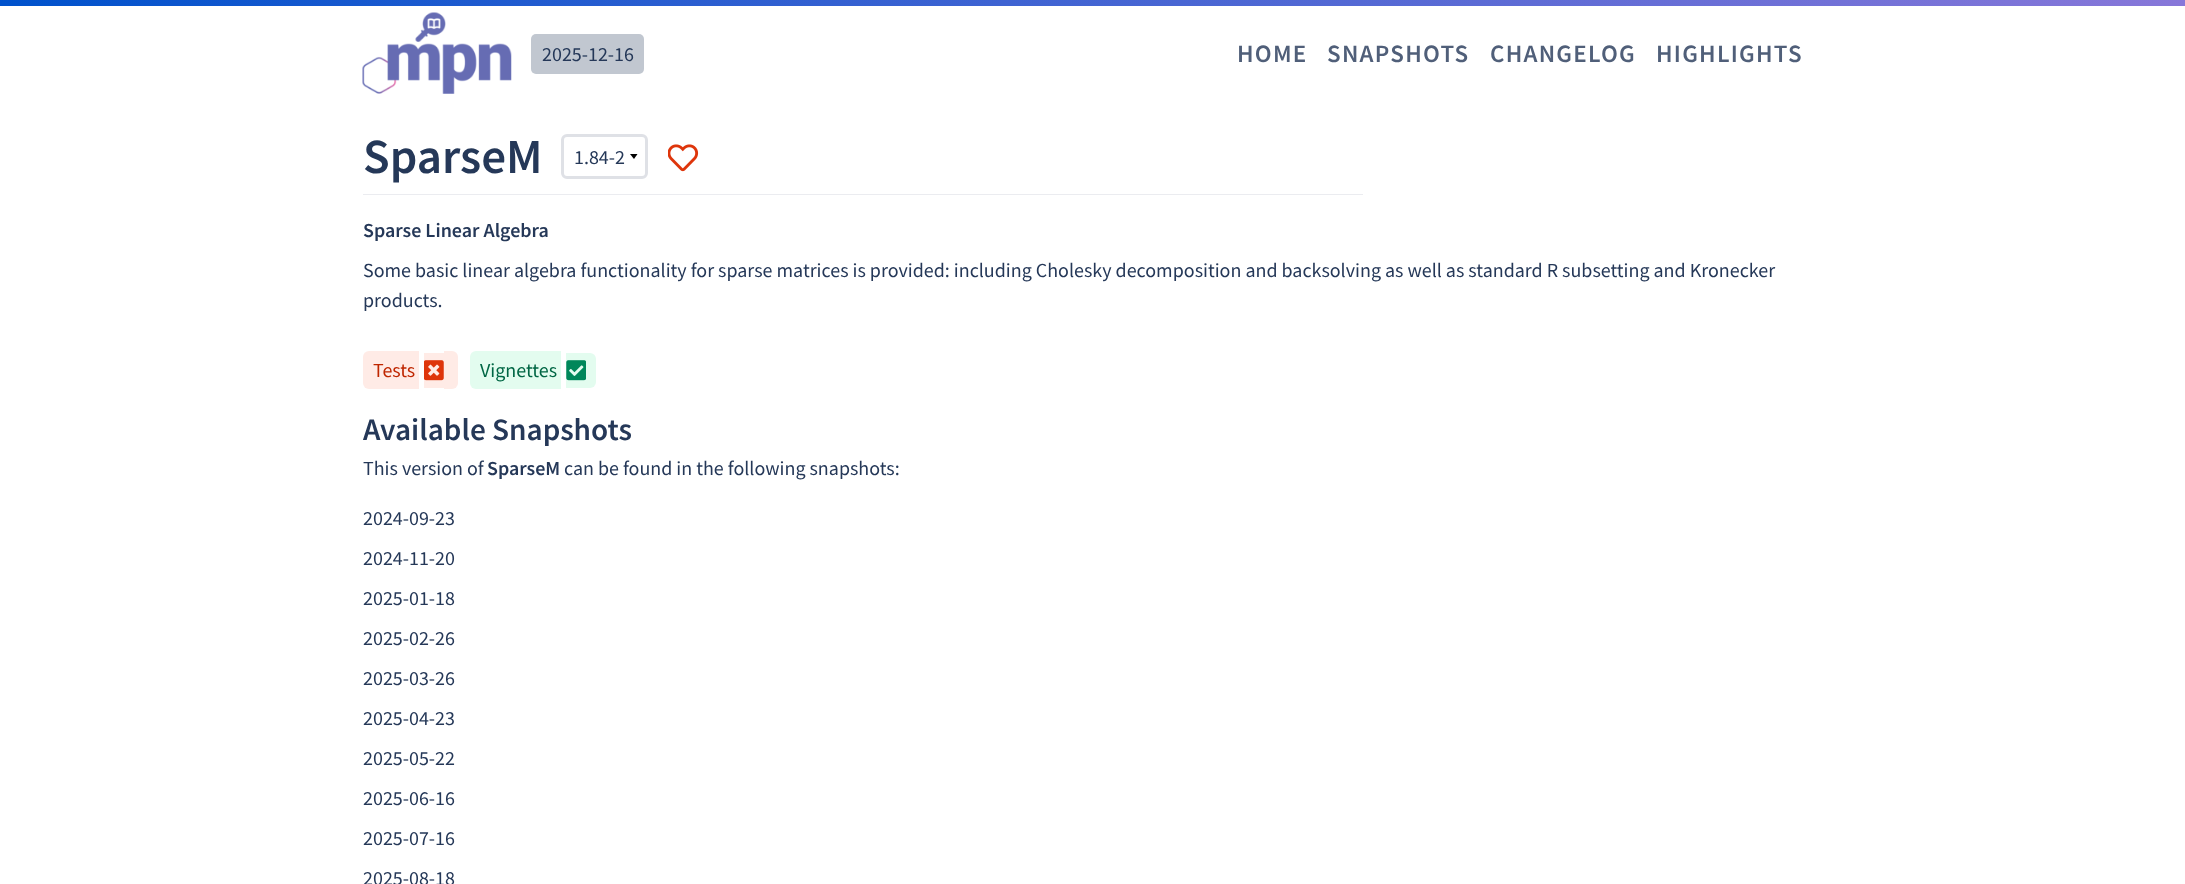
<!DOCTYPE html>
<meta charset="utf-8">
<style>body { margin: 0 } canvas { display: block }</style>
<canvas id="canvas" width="2185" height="884"></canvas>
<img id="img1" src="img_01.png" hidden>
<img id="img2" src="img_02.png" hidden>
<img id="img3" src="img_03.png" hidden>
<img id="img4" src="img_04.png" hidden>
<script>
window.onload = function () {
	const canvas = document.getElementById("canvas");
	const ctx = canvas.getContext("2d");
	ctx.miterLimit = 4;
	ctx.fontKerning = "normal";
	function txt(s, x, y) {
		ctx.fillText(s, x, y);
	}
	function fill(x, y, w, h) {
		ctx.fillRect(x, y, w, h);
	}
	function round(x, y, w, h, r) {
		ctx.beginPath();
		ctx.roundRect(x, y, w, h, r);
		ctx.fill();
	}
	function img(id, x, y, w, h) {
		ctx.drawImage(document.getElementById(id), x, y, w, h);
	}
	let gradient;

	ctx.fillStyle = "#FFFFFF";
	fill(0, 0, 2185, 884);
	gradient = ctx.createLinearGradient(0, 3.1, 2185, 3.1);
	gradient.addColorStop(0, "#0052CC");
	gradient.addColorStop(1, "#8777D9");
	ctx.fillStyle = gradient;
	fill(0, 0, 2185, 6);
	img("img1", 362, 12, 150, 82);
	ctx.fillStyle = "#C1C7D0";
	round(531, 34, 113, 40, 5);
	ctx.fillStyle = "#EBECF0";
	fill(363, 194, 1000, 1);
	ctx.fillStyle = "#000000";
	ctx.beginPath();
	ctx.moveTo(630, 154);
	ctx.lineTo(637.5, 154);
	ctx.lineTo(634, 159);
	ctx.fill();
	ctx.beginPath();
	ctx.roundRect(562.5, 135.5, 84, 42, 4.5);
	ctx.strokeStyle = "#DFE1E6";
	ctx.lineWidth = 3;
	ctx.stroke();
	img("img2", 668, 144, 31, 28);
	ctx.fillStyle = "#FFEBE6";
	ctx.beginPath();
	ctx.roundRect(363, 351, 56, 38, [6, 0, 0, 6]);
	ctx.fill();
	fill(424, 353, 20, 35);
	ctx.beginPath();
	ctx.roundRect(444, 351, 14, 38, [0, 6, 6, 0]);
	ctx.fill();
	img("img3", 424, 360, 20, 21);
	ctx.fillStyle = "#E3FCEF";
	ctx.beginPath();
	ctx.roundRect(470, 351, 91, 38, [6, 0, 0, 6]);
	ctx.fill();
	ctx.beginPath();
	ctx.roundRect(566, 353, 30, 35, [0, 6, 6, 0]);
	ctx.fill();
	img("img4", 566, 360, 20, 21);
	ctx.font = "20px Source Sans Pro";
	ctx.fillStyle = "#253858";
	txt("2025-12-16", 542, 61);
	ctx.letterSpacing = "1.25px";
	ctx.font = "600 25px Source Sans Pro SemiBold";
	ctx.fillStyle = "#505F79";
	txt("HOME", 1237, 62);
	txt("SNAPSHOTS", 1327, 62);
	txt("CHANGELOG", 1490, 62);
	txt("HIGHLIGHTS", 1656, 62);
	ctx.letterSpacing = "0px";
	ctx.font = "600 49px Source Sans Pro SemiBold";
	ctx.fillStyle = "#253858";
	txt("SparseM", 363, 173);
	ctx.font = "20px Source Sans Pro";
	txt("1.84-2", 574, 164);
	ctx.font = "600 20px Source Sans Pro SemiBold";
	txt("Sparse Linear Algebra", 363, 237);
	ctx.font = "20px Source Sans Pro";
	txt("Some basic linear algebra functionality for sparse matrices is provided: including Cholesky decomposition and backsolving as well as standard R subsetting and Kronecker", 363, 277);
	txt("products.", 363, 307);
	ctx.fillStyle = "#BF2600";
	txt("Tests", 373, 377);
	ctx.fillStyle = "#006644";
	txt("Vignettes", 480, 377);
	ctx.font = "600 31.25px Source Sans Pro SemiBold";
	ctx.fillStyle = "#253858";
	txt("Available Snapshots", 363, 440);
	ctx.font = "20px Source Sans Pro";
	txt("This version of", 363, 475);
	ctx.font = "600 20px Source Sans Pro SemiBold";
	txt("SparseM", 487, 475);
	ctx.font = "20px Source Sans Pro";
	txt("can be found in the following snapshots:", 564, 475);
	txt("2024-09-23", 363, 525);
	txt("2024-11-20", 363, 565);
	txt("2025-01-18", 363, 605);
	txt("2025-02-26", 363, 645);
	txt("2025-03-26", 363, 685);
	txt("2025-04-23", 363, 725);
	txt("2025-05-22", 363, 765);
	txt("2025-06-16", 363, 805);
	txt("2025-07-16", 363, 845);
	txt("2025-08-18", 363, 885);
};
</script>
